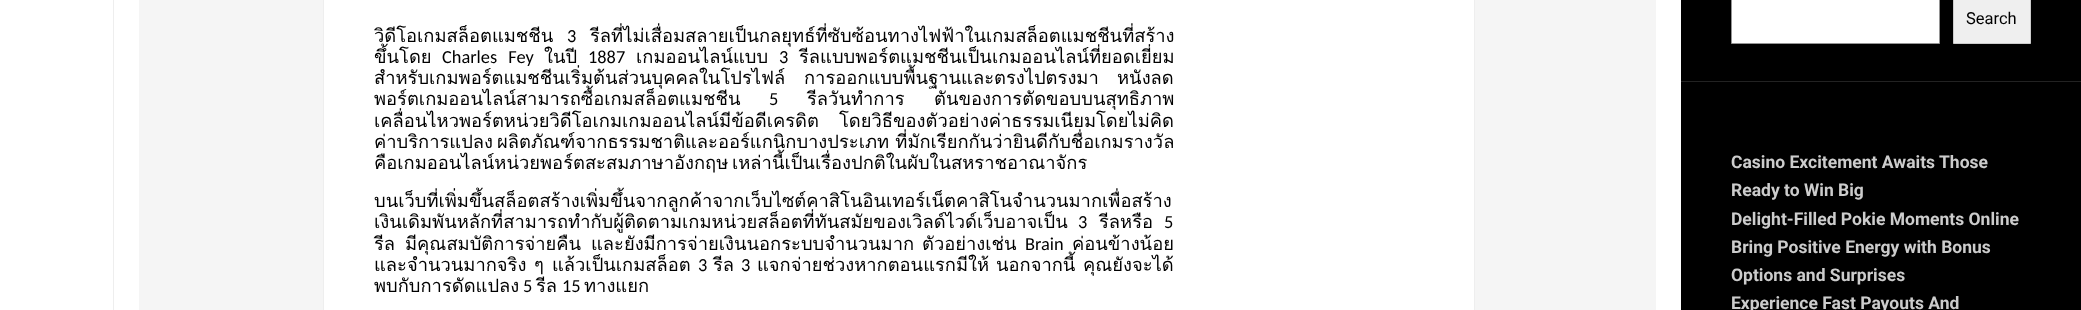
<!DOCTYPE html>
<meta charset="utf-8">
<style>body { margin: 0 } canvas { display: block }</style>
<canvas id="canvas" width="2081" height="310"></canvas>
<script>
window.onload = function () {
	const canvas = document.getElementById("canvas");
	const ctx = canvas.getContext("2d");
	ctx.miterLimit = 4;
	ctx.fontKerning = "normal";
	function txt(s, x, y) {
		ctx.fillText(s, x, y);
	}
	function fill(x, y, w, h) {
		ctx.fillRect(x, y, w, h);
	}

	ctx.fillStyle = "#FFFFFF";
	fill(0, 0, 2081, 310);
	ctx.fillStyle = "#EEEEEE";
	fill(113, 0, 1, 310);
	ctx.fillStyle = "#F5F5F5";
	fill(139, 0, 1517, 310);
	ctx.fillStyle = "#FFFFFF";
	ctx.beginPath();
	ctx.rect(323.5, -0.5, 1151, 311);
	ctx.fill();
	ctx.strokeStyle = "#EEEEEE";
	ctx.stroke();
	ctx.fillStyle = "#000000";
	fill(1681, 0, 400, 310);
	ctx.fillStyle = "#FFFFFF";
	ctx.beginPath();
	ctx.rect(1731.5, -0.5, 208, 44);
	ctx.fill();
	ctx.strokeStyle = "#949494";
	ctx.stroke();
	ctx.fillStyle = "#EFEFEF";
	ctx.beginPath();
	ctx.rect(1953.5, -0.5, 77, 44);
	ctx.fill();
	ctx.strokeStyle = "#CCCCCC";
	ctx.stroke();
	ctx.fillStyle = "#222222";
	fill(1681, 81, 400, 1);
	ctx.font = "18.35px Loma";
	ctx.fillStyle = "#000000";
	txt("วิดีโอเกมสล็อตแมชชีน", 374, 42);
	ctx.font = "18.35px Carlito";
	txt("3", 567, 42);
	ctx.font = "18.35px Loma";
	txt("รีลที่ไม่เสื่อมสลายเป็นกลยุทธ์ที่ซับซ้อนทางไฟฟ้าในเกมสล็อตแมชชีนที่สร้าง", 590, 42);
	txt("ขึ้นโดย", 374, 63);
	ctx.wordSpacing = "7px";
	ctx.font = "18.35px Carlito";
	txt("Charles Fey", 442, 63);
	ctx.wordSpacing = "0px";
	ctx.font = "18.35px Loma";
	txt("ในปี", 544, 63);
	ctx.font = "18.35px Carlito";
	txt("1887", 588, 63);
	ctx.font = "18.35px Loma";
	txt("เกมออนไลน์แบบ", 636, 63);
	ctx.font = "18.35px Carlito";
	txt("3", 779, 63);
	ctx.font = "18.35px Loma";
	txt("รีลแบบพอร์ตแมชชีนเป็นเกมออนไลน์ที่ยอดเยี่ยม", 799, 63);
	txt("สำหรับเกมพอร์ตแมชชีนเริ่มต้นส่วนบุคคลในโปรไฟล์", 374, 84);
	txt("การออกแบบพื้นฐานและตรงไปตรงมา", 804, 84);
	txt("หนังลด", 1117, 84);
	txt("พอร์ตเกมออนไลน์สามารถซื้อเกมสล็อตแมชชีน", 374, 105);
	ctx.font = "18.35px Carlito";
	txt("5", 769, 105);
	ctx.font = "18.35px Loma";
	txt("รีลวันทำการ", 807, 105);
	txt("ตันของการตัดขอบบนสุทธิภาพ", 934, 105);
	txt("เคลื่อนไหวพอร์ตหน่วยวิดีโอเกมเกมออนไลน์มีข้อดีเครดิต", 374, 127);
	txt("โดยวิธีของตัวอย่างค่าธรรมเนียมโดยไม่คิด", 839, 127);
	txt("ค่าบริการแปลง", 374, 148);
	txt("ผลิตภัณฑ์จากธรรมชาติและออร์แกนิกบางประเภท ที่มักเรียกกันว่ายินดีกับชื่อเกมรางวัล", 497, 148);
	txt("คือเกมออนไลน์หน่วยพอร์ตสะสมภาษาอังกฤษ", 374, 169);
	txt("เหล่านี้เป็นเรื่องปกติในผับในสหราชอาณาจักร", 732, 169);
	txt("บนเว็บที่เพิ่มขึ้นสล็อตสร้างเพิ่มขึ้นจากลูกค้าจากเว็บไซต์คาสิโนอินเทอร์เน็ตคาสิโนจำนวนมากเพื่อสร้าง", 374, 207);
	txt("เงินเดิมพันหลักที่สามารถทำกับผู้ติดตามเกมหน่วยสล็อตที่ทันสมัยของเวิลด์ไวด์เว็บอาจเป็น", 374, 228);
	ctx.font = "18.35px Carlito";
	txt("3", 1078, 228);
	ctx.font = "18.35px Loma";
	txt("รีลหรือ", 1099, 228);
	ctx.font = "18.35px Carlito";
	txt("5", 1164, 228);
	ctx.font = "18.35px Loma";
	txt("รีล", 374, 250);
	txt("มีคุณสมบัติการจ่ายคืน", 405, 250);
	txt("และยังมีการจ่ายเงินนอกระบบจำนวนมาก", 591, 250);
	txt("ตัวอย่างเช่น", 922, 250);
	ctx.font = "18.35px Carlito";
	txt("Brain", 1025, 250);
	ctx.font = "18.35px Loma";
	txt("ค่อนข้างน้อย", 1072, 250);
	txt("และจำนวนมากจริง", 374, 271);
	txt("ๆ", 534, 271);
	txt("แล้วเป็นเกมสล็อต", 552, 271);
	ctx.font = "18.35px Carlito";
	txt("3", 698, 271);
	ctx.font = "18.35px Loma";
	txt("รีล", 713, 271);
	ctx.font = "18.35px Carlito";
	txt("3", 741, 271);
	ctx.font = "18.35px Loma";
	txt("แจกจ่ายช่วงหากตอนแรกมีให้", 757, 271);
	txt("นอกจากนี้", 996, 271);
	txt("คุณยังจะได้", 1083, 271);
	txt("พบกับการดัดแปลง", 374, 292);
	ctx.font = "18.35px Carlito";
	txt("5", 523, 292);
	ctx.font = "18.35px Loma";
	txt("รีล", 536, 292);
	ctx.font = "18.35px Carlito";
	txt("15", 562, 292);
	ctx.font = "18.35px Loma";
	txt("ทางแยก", 584, 292);
	ctx.font = "16.5px Roboto";
	txt("Search", 1966, 24);
	ctx.font = "bold 17.5px Roboto";
	ctx.fillStyle = "#CCCCCC";
	txt("Casino Excitement Awaits Those", 1731, 168);
	txt("Ready to Win Big", 1731, 196);
	txt("Delight-Filled Pokie Moments Online", 1731, 225);
	txt("Bring Positive Energy with Bonus", 1731, 253);
	txt("Options and Surprises", 1731, 281);
	txt("Experience Fast Payouts And", 1731, 309);
};
</script>
